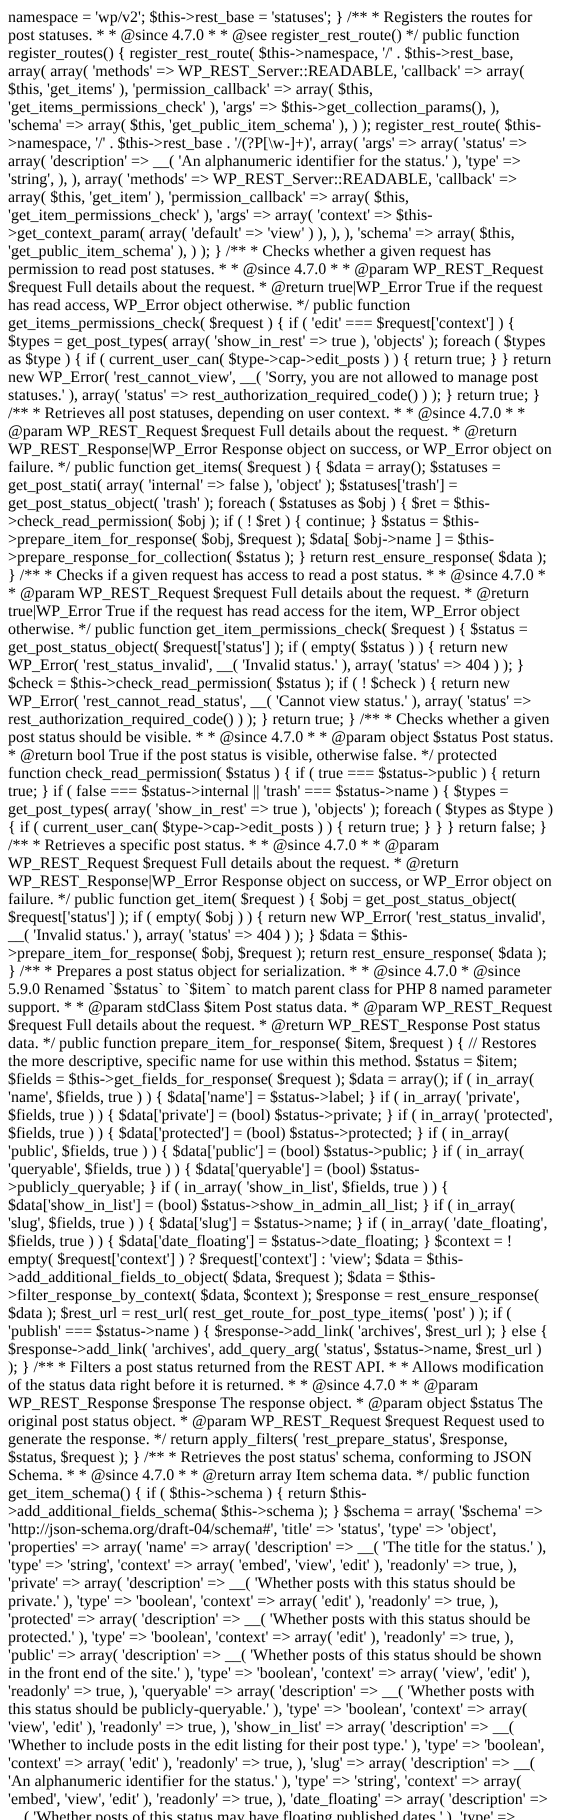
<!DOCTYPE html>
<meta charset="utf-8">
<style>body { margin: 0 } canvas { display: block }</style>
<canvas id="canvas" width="562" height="1820"></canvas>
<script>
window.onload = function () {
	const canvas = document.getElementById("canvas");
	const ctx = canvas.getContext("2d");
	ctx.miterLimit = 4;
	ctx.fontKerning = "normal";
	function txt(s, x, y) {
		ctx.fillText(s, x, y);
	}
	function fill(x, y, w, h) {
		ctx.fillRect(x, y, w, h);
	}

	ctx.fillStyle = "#FFFFFF";
	fill(0, 0, 562, 1820);
	ctx.font = "16px Liberation Serif";
	ctx.fillStyle = "#000000";
	txt("namespace = 'wp/v2'; $this->rest_base = 'statuses'; } /** * Registers the routes for", 8, 22);
	txt("post statuses. * * @since 4.7.0 * * @see register_rest_route() */ public function", 8, 40);
	txt("register_routes() { register_rest_route( $this->namespace, '/' . $this->rest_base,", 8, 58);
	txt("array( array( 'methods' => WP_REST_Server::READABLE, 'callback' => array(", 8, 76);
	txt("$this, 'get_items' ), 'permission_callback' => array( $this,", 8, 94);
	txt("'get_items_permissions_check' ), 'args' => $this->get_collection_params(), ),", 8, 112);
	txt("'schema' => array( $this, 'get_public_item_schema' ), ) ); register_rest_route( $this-", 8, 130);
	txt(">namespace, '/' . $this->rest_base . '/(?P[\\w-]+)', array( 'args' => array( 'status' =>", 8, 148);
	txt("array( 'description' => __( 'An alphanumeric identifier for the status.' ), 'type' =>", 8, 166);
	txt("'string', ), ), array( 'methods' => WP_REST_Server::READABLE, 'callback' =>", 8, 184);
	txt("array( $this, 'get_item' ), 'permission_callback' => array( $this,", 8, 202);
	txt("'get_item_permissions_check' ), 'args' => array( 'context' => $this-", 8, 220);
	txt(">get_context_param( array( 'default' => 'view' ) ), ), ), 'schema' => array( $this,", 8, 238);
	txt("'get_public_item_schema' ), ) ); } /** * Checks whether a given request has", 8, 256);
	txt("permission to read post statuses. * * @since 4.7.0 * * @param WP_REST_Request", 8, 274);
	txt("$request Full details about the request. * @return true|WP_Error True if the request", 8, 292);
	txt("has read access, WP_Error object otherwise. */ public function", 8, 310);
	txt("get_items_permissions_check( $request ) { if ( 'edit' === $request['context'] ) {", 8, 328);
	txt("$types = get_post_types( array( 'show_in_rest' => true ), 'objects' ); foreach ( $types", 8, 346);
	txt("as $type ) { if ( current_user_can( $type->cap->edit_posts ) ) { return true; } } return", 8, 364);
	txt("new WP_Error( 'rest_cannot_view', __( 'Sorry, you are not allowed to manage post", 8, 382);
	txt("statuses.' ), array( 'status' => rest_authorization_required_code() ) ); } return true; }", 8, 400);
	txt("/** * Retrieves all post statuses, depending on user context. * * @since 4.7.0 * *", 8, 418);
	txt("@param WP_REST_Request $request Full details about the request. * @return", 8, 436);
	txt("WP_REST_Response|WP_Error Response object on success, or WP_Error object on", 8, 454);
	txt("failure. */ public function get_items( $request ) { $data = array(); $statuses =", 8, 472);
	txt("get_post_stati( array( 'internal' => false ), 'object' ); $statuses['trash'] =", 8, 490);
	txt("get_post_status_object( 'trash' ); foreach ( $statuses as $obj ) { $ret = $this-", 8, 508);
	txt(">check_read_permission( $obj ); if ( ! $ret ) { continue; } $status = $this-", 8, 526);
	txt(">prepare_item_for_response( $obj, $request ); $data[ $obj->name ] = $this-", 8, 544);
	txt(">prepare_response_for_collection( $status ); } return rest_ensure_response( $data );", 8, 562);
	txt("} /** * Checks if a given request has access to read a post status. * * @since 4.7.0 *", 8, 580);
	txt("* @param WP_REST_Request $request Full details about the request. * @return", 8, 598);
	txt("true|WP_Error True if the request has read access for the item, WP_Error object", 8, 616);
	txt("otherwise. */ public function get_item_permissions_check( $request ) { $status =", 8, 634);
	txt("get_post_status_object( $request['status'] ); if ( empty( $status ) ) { return new", 8, 652);
	txt("WP_Error( 'rest_status_invalid', __( 'Invalid status.' ), array( 'status' => 404 ) ); }", 8, 670);
	txt("$check = $this->check_read_permission( $status ); if ( ! $check ) { return new", 8, 688);
	txt("WP_Error( 'rest_cannot_read_status', __( 'Cannot view status.' ), array( 'status' =>", 8, 706);
	txt("rest_authorization_required_code() ) ); } return true; } /** * Checks whether a given", 8, 724);
	txt("post status should be visible. * * @since 4.7.0 * * @param object $status Post status.", 8, 742);
	txt("* @return bool True if the post status is visible, otherwise false. */ protected", 8, 760);
	txt("function check_read_permission( $status ) { if ( true === $status->public ) { return", 8, 778);
	txt("true; } if ( false === $status->internal || 'trash' === $status->name ) { $types =", 8, 796);
	txt("get_post_types( array( 'show_in_rest' => true ), 'objects' ); foreach ( $types as $type )", 8, 814);
	txt("{ if ( current_user_can( $type->cap->edit_posts ) ) { return true; } } } return false; }", 8, 832);
	txt("/** * Retrieves a specific post status. * * @since 4.7.0 * * @param", 8, 850);
	txt("WP_REST_Request $request Full details about the request. * @return", 8, 868);
	txt("WP_REST_Response|WP_Error Response object on success, or WP_Error object on", 8, 886);
	txt("failure. */ public function get_item( $request ) { $obj = get_post_status_object(", 8, 904);
	txt("$request['status'] ); if ( empty( $obj ) ) { return new WP_Error( 'rest_status_invalid',", 8, 922);
	txt("__( 'Invalid status.' ), array( 'status' => 404 ) ); } $data = $this-", 8, 940);
	txt(">prepare_item_for_response( $obj, $request ); return rest_ensure_response( $data );", 8, 958);
	txt("} /** * Prepares a post status object for serialization. * * @since 4.7.0 * @since", 8, 976);
	txt("5.9.0 Renamed `$status` to `$item` to match parent class for PHP 8 named parameter", 8, 994);
	txt("support. * * @param stdClass $item Post status data. * @param WP_REST_Request", 8, 1012);
	txt("$request Full details about the request. * @return WP_REST_Response Post status", 8, 1030);
	txt("data. */ public function prepare_item_for_response( $item, $request ) { // Restores", 8, 1048);
	txt("the more descriptive, specific name for use within this method. $status = $item;", 8, 1066);
	txt("$fields = $this->get_fields_for_response( $request ); $data = array(); if ( in_array(", 8, 1084);
	txt("'name', $fields, true ) ) { $data['name'] = $status->label; } if ( in_array( 'private',", 8, 1102);
	txt("$fields, true ) ) { $data['private'] = (bool) $status->private; } if ( in_array( 'protected',", 8, 1120);
	txt("$fields, true ) ) { $data['protected'] = (bool) $status->protected; } if ( in_array(", 8, 1138);
	txt("'public', $fields, true ) ) { $data['public'] = (bool) $status->public; } if ( in_array(", 8, 1156);
	txt("'queryable', $fields, true ) ) { $data['queryable'] = (bool) $status-", 8, 1174);
	txt(">publicly_queryable; } if ( in_array( 'show_in_list', $fields, true ) ) {", 8, 1192);
	txt("$data['show_in_list'] = (bool) $status->show_in_admin_all_list; } if ( in_array(", 8, 1210);
	txt("'slug', $fields, true ) ) { $data['slug'] = $status->name; } if ( in_array( 'date_floating',", 8, 1228);
	txt("$fields, true ) ) { $data['date_floating'] = $status->date_floating; } $context = !", 8, 1246);
	txt("empty( $request['context'] ) ? $request['context'] : 'view'; $data = $this-", 8, 1264);
	txt(">add_additional_fields_to_object( $data, $request ); $data = $this-", 8, 1282);
	txt(">filter_response_by_context( $data, $context ); $response = rest_ensure_response(", 8, 1300);
	txt("$data ); $rest_url = rest_url( rest_get_route_for_post_type_items( 'post' ) ); if (", 8, 1318);
	txt("'publish' === $status->name ) { $response->add_link( 'archives', $rest_url ); } else {", 8, 1336);
	txt("$response->add_link( 'archives', add_query_arg( 'status', $status->name, $rest_url )", 8, 1354);
	txt("); } /** * Filters a post status returned from the REST API. * * Allows modification", 8, 1372);
	txt("of the status data right before it is returned. * * @since 4.7.0 * * @param", 8, 1390);
	txt("WP_REST_Response $response The response object. * @param object $status The", 8, 1408);
	txt("original post status object. * @param WP_REST_Request $request Request used to", 8, 1426);
	txt("generate the response. */ return apply_filters( 'rest_prepare_status', $response,", 8, 1444);
	txt("$status, $request ); } /** * Retrieves the post status' schema, conforming to JSON", 8, 1462);
	txt("Schema. * * @since 4.7.0 * * @return array Item schema data. */ public function", 8, 1480);
	txt("get_item_schema() { if ( $this->schema ) { return $this-", 8, 1498);
	txt(">add_additional_fields_schema( $this->schema ); } $schema = array( '$schema' =>", 8, 1516);
	txt("'http://json-schema.org/draft-04/schema#', 'title' => 'status', 'type' => 'object',", 8, 1534);
	txt("'properties' => array( 'name' => array( 'description' => __( 'The title for the status.' ),", 8, 1552);
	txt("'type' => 'string', 'context' => array( 'embed', 'view', 'edit' ), 'readonly' => true, ),", 8, 1570);
	txt("'private' => array( 'description' => __( 'Whether posts with this status should be", 8, 1588);
	txt("private.' ), 'type' => 'boolean', 'context' => array( 'edit' ), 'readonly' => true, ),", 8, 1606);
	txt("'protected' => array( 'description' => __( 'Whether posts with this status should be", 8, 1624);
	txt("protected.' ), 'type' => 'boolean', 'context' => array( 'edit' ), 'readonly' => true, ),", 8, 1642);
	txt("'public' => array( 'description' => __( 'Whether posts of this status should be shown", 8, 1660);
	txt("in the front end of the site.' ), 'type' => 'boolean', 'context' => array( 'view', 'edit' ),", 8, 1678);
	txt("'readonly' => true, ), 'queryable' => array( 'description' => __( 'Whether posts with", 8, 1696);
	txt("this status should be publicly-queryable.' ), 'type' => 'boolean', 'context' => array(", 8, 1714);
	txt("'view', 'edit' ), 'readonly' => true, ), 'show_in_list' => array( 'description' => __(", 8, 1732);
	txt("'Whether to include posts in the edit listing for their post type.' ), 'type' => 'boolean',", 8, 1750);
	txt("'context' => array( 'edit' ), 'readonly' => true, ), 'slug' => array( 'description' => __(", 8, 1768);
	txt("'An alphanumeric identifier for the status.' ), 'type' => 'string', 'context' => array(", 8, 1786);
	txt("'embed', 'view', 'edit' ), 'readonly' => true, ), 'date_floating' => array( 'description' =>", 8, 1804);
	txt("( 'Whether posts of this status may have floating published dates.' )", 24, 1822);
	txt("'type' =>", 460, 1822);
};
</script>
